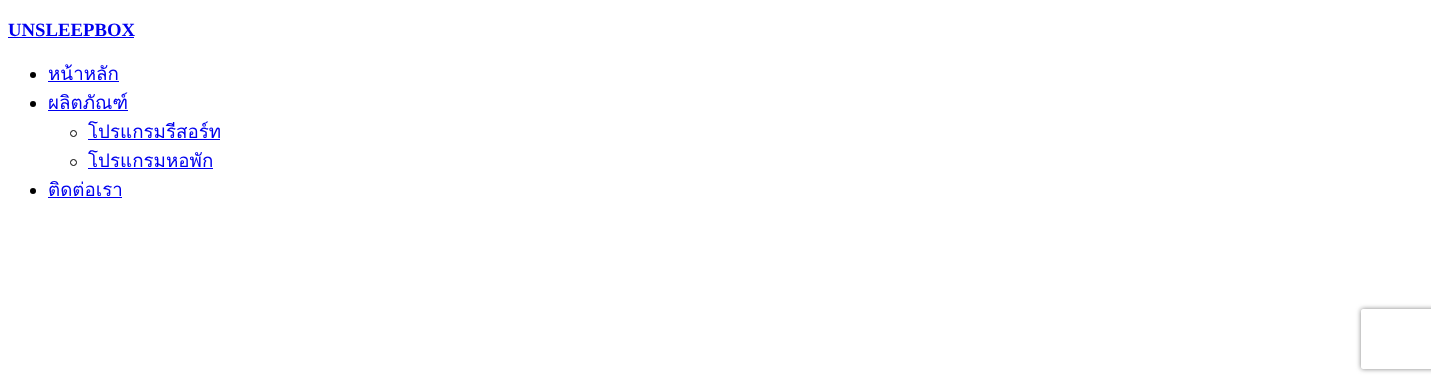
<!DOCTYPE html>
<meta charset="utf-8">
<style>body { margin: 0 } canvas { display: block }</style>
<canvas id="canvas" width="1431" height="383"></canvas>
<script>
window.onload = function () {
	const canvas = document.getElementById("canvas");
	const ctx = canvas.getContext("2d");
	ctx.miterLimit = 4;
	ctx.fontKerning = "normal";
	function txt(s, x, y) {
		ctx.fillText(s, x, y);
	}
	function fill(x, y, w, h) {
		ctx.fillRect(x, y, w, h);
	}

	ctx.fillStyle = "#FFFFFF";
	fill(0, 0, 1431, 383);
	ctx.fillStyle = "#0000EE";
	fill(8, 37, 126, 1);
	ctx.fillStyle = "#000000";
	ctx.beginPath();
	ctx.arc(33, 75, 3, 0, Math.PI * 2);
	ctx.fill();
	ctx.fillStyle = "#0000EE";
	fill(48, 81, 71, 1);
	ctx.fillStyle = "#000000";
	ctx.beginPath();
	ctx.arc(33, 104, 3, 0, Math.PI * 2);
	ctx.fill();
	ctx.fillStyle = "#0000EE";
	fill(48, 110, 80, 1);
	ctx.beginPath();
	ctx.arc(73.5, 133.5, 3, 0, Math.PI * 2);
	ctx.strokeStyle = "#000000";
	ctx.stroke();
	fill(88, 139, 132, 1);
	ctx.beginPath();
	ctx.arc(73.5, 162.5, 3, 0, Math.PI * 2);
	ctx.stroke();
	fill(88, 168, 125, 1);
	ctx.fillStyle = "#000000";
	ctx.beginPath();
	ctx.arc(33, 191, 3, 0, Math.PI * 2);
	ctx.fill();
	ctx.fillStyle = "#0000EE";
	fill(48, 197, 74, 1);
	ctx.save();
	ctx.beginPath();
	ctx.moveTo(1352, 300);
	ctx.lineTo(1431, 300);
	ctx.lineTo(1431, 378);
	ctx.lineTo(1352, 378);
	ctx.closePath();
	ctx.moveTo(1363, 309);
	ctx.lineTo(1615, 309);
	ctx.bezierCurveTo(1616, 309, 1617, 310, 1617, 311);
	ctx.lineTo(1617, 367);
	ctx.bezierCurveTo(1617, 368, 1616, 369, 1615, 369);
	ctx.lineTo(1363, 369);
	ctx.bezierCurveTo(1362, 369, 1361, 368, 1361, 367);
	ctx.lineTo(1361, 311);
	ctx.bezierCurveTo(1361, 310, 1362, 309, 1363, 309);
	ctx.closePath();
	ctx.clip("evenodd");
	ctx.fillStyle = "#808080";
	ctx.filter = "blur(2.5px)";
	ctx.beginPath();
	ctx.roundRect(1361, 309, 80, 60, 2);
	ctx.fill();
	ctx.filter = "none";
	ctx.restore();
	ctx.font = "bold 18.75px Liberation Serif";
	txt("UNSLEEPBOX", 8, 36);
	ctx.font = "18.75px Loma";
	txt("หน้าหลัก", 48, 80);
	txt("ผลิตภัณฑ์", 48, 109);
	txt("โปรแกรมรีสอร์ท", 88, 138);
	txt("โปรแกรมหอพัก", 88, 167);
	txt("ติดต่อเรา", 48, 196);
};
</script>
